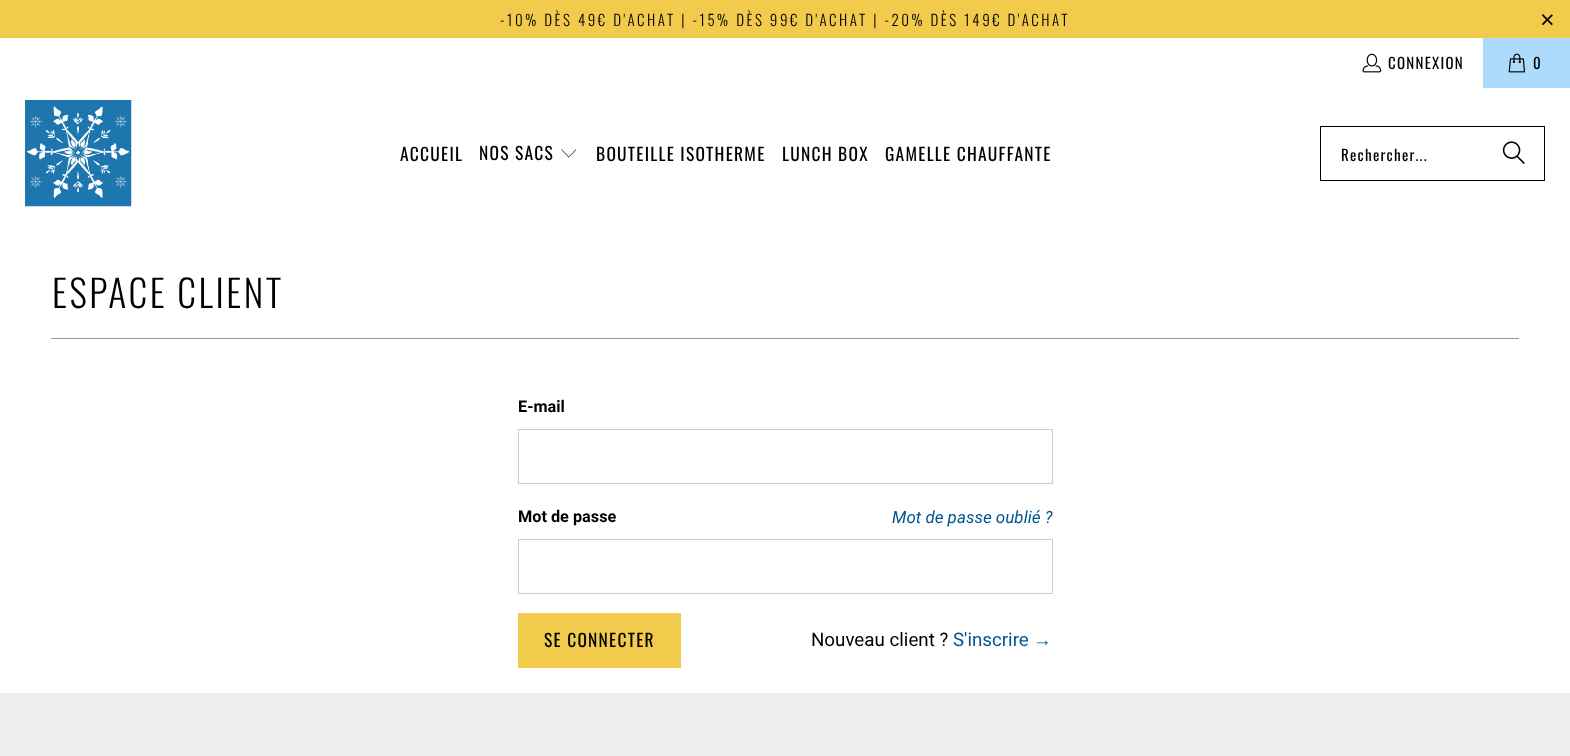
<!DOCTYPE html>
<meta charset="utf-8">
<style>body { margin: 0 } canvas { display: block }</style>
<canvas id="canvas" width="1570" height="756"></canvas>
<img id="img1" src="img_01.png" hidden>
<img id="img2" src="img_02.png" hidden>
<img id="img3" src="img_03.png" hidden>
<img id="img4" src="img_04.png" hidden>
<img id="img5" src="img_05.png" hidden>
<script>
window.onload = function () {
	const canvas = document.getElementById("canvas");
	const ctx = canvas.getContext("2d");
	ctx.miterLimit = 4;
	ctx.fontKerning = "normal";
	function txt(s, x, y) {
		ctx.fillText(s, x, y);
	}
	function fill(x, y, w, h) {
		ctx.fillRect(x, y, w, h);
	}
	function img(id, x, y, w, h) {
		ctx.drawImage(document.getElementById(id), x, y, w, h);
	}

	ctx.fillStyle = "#FFFFFF";
	fill(0, 0, 1570, 756);
	ctx.fillStyle = "#F2CA4C";
	fill(0, 0, 1570, 38);
	img("img1", 1362, 53, 20, 20);
	ctx.fillStyle = "#ADDBFC";
	fill(1483, 38, 87, 50);
	img("img2", 1508, 53, 18, 20);
	img("img3", 25, 100, 107, 107);
	img("img4", 561, 149, 16, 9);
	ctx.strokeStyle = "#000000";
	ctx.strokeRect(1320.5, 126.5, 224, 54);
	img("img5", 1502, 141, 23, 23);
	ctx.fillStyle = "#959699";
	fill(51, 338, 1468, 1);
	ctx.strokeStyle = "#CCCCCC";
	ctx.strokeRect(518.5, 429.5, 534, 54);
	ctx.strokeRect(518.5, 539.5, 534, 54);
	ctx.fillStyle = "#F2CA4C";
	fill(518, 613, 163, 55);
	ctx.fillStyle = "#EEEFF1";
	fill(0, 693, 1570, 63);
	ctx.letterSpacing = "2.5px";
	ctx.font = "300 15px Oswald";
	ctx.fillStyle = "#000000";
	txt("-10% DÈS 49€ D'ACHAT | -15% DÈS 99€ D'ACHAT | -20% DÈS 149€ D'ACHAT", 500, 26);
	ctx.font = "25px Liberation Sans";
	txt("×", 1540, 28);
	ctx.letterSpacing = "1.25px";
	ctx.font = "15px Oswald";
	txt("CONNEXION", 1388, 69);
	txt("0", 1533, 69);
	ctx.font = "17.5px Oswald";
	txt("ACCUEIL", 400, 161);
	txt("NOS SACS", 479, 160);
	txt("BOUTEILLE ISOTHERME", 596, 161);
	txt("LUNCH BOX", 782, 161);
	txt("GAMELLE CHAUFFANTE", 885, 161);
	ctx.font = "15px Oswald";
	txt("Rechercher...", 1341, 161);
	ctx.letterSpacing = "2.5px";
	ctx.font = "300 37.5px Oswald";
	txt("ESPACE CLIENT", 52, 308);
	ctx.letterSpacing = "0px";
	ctx.font = "bold 16.25px Roboto";
	txt("E-mail", 518, 412);
	txt("Mot de passe", 518, 522);
	ctx.font = "italic 16.9px Roboto";
	ctx.fillStyle = "#005691";
	txt("Mot de passe oublié ?", 892, 523);
	ctx.letterSpacing = "1.25px";
	ctx.font = "17.5px Oswald";
	ctx.fillStyle = "#000000";
	txt("SE CONNECTER", 544, 647);
	ctx.letterSpacing = "0px";
	ctx.font = "18.75px Roboto";
	txt("Nouveau client ?", 811, 646);
	ctx.fillStyle = "#005691";
	txt("S'inscrire", 953, 646);
	ctx.font = "18.75px Liberation Sans";
	txt("→", 1033, 646);
};
</script>
